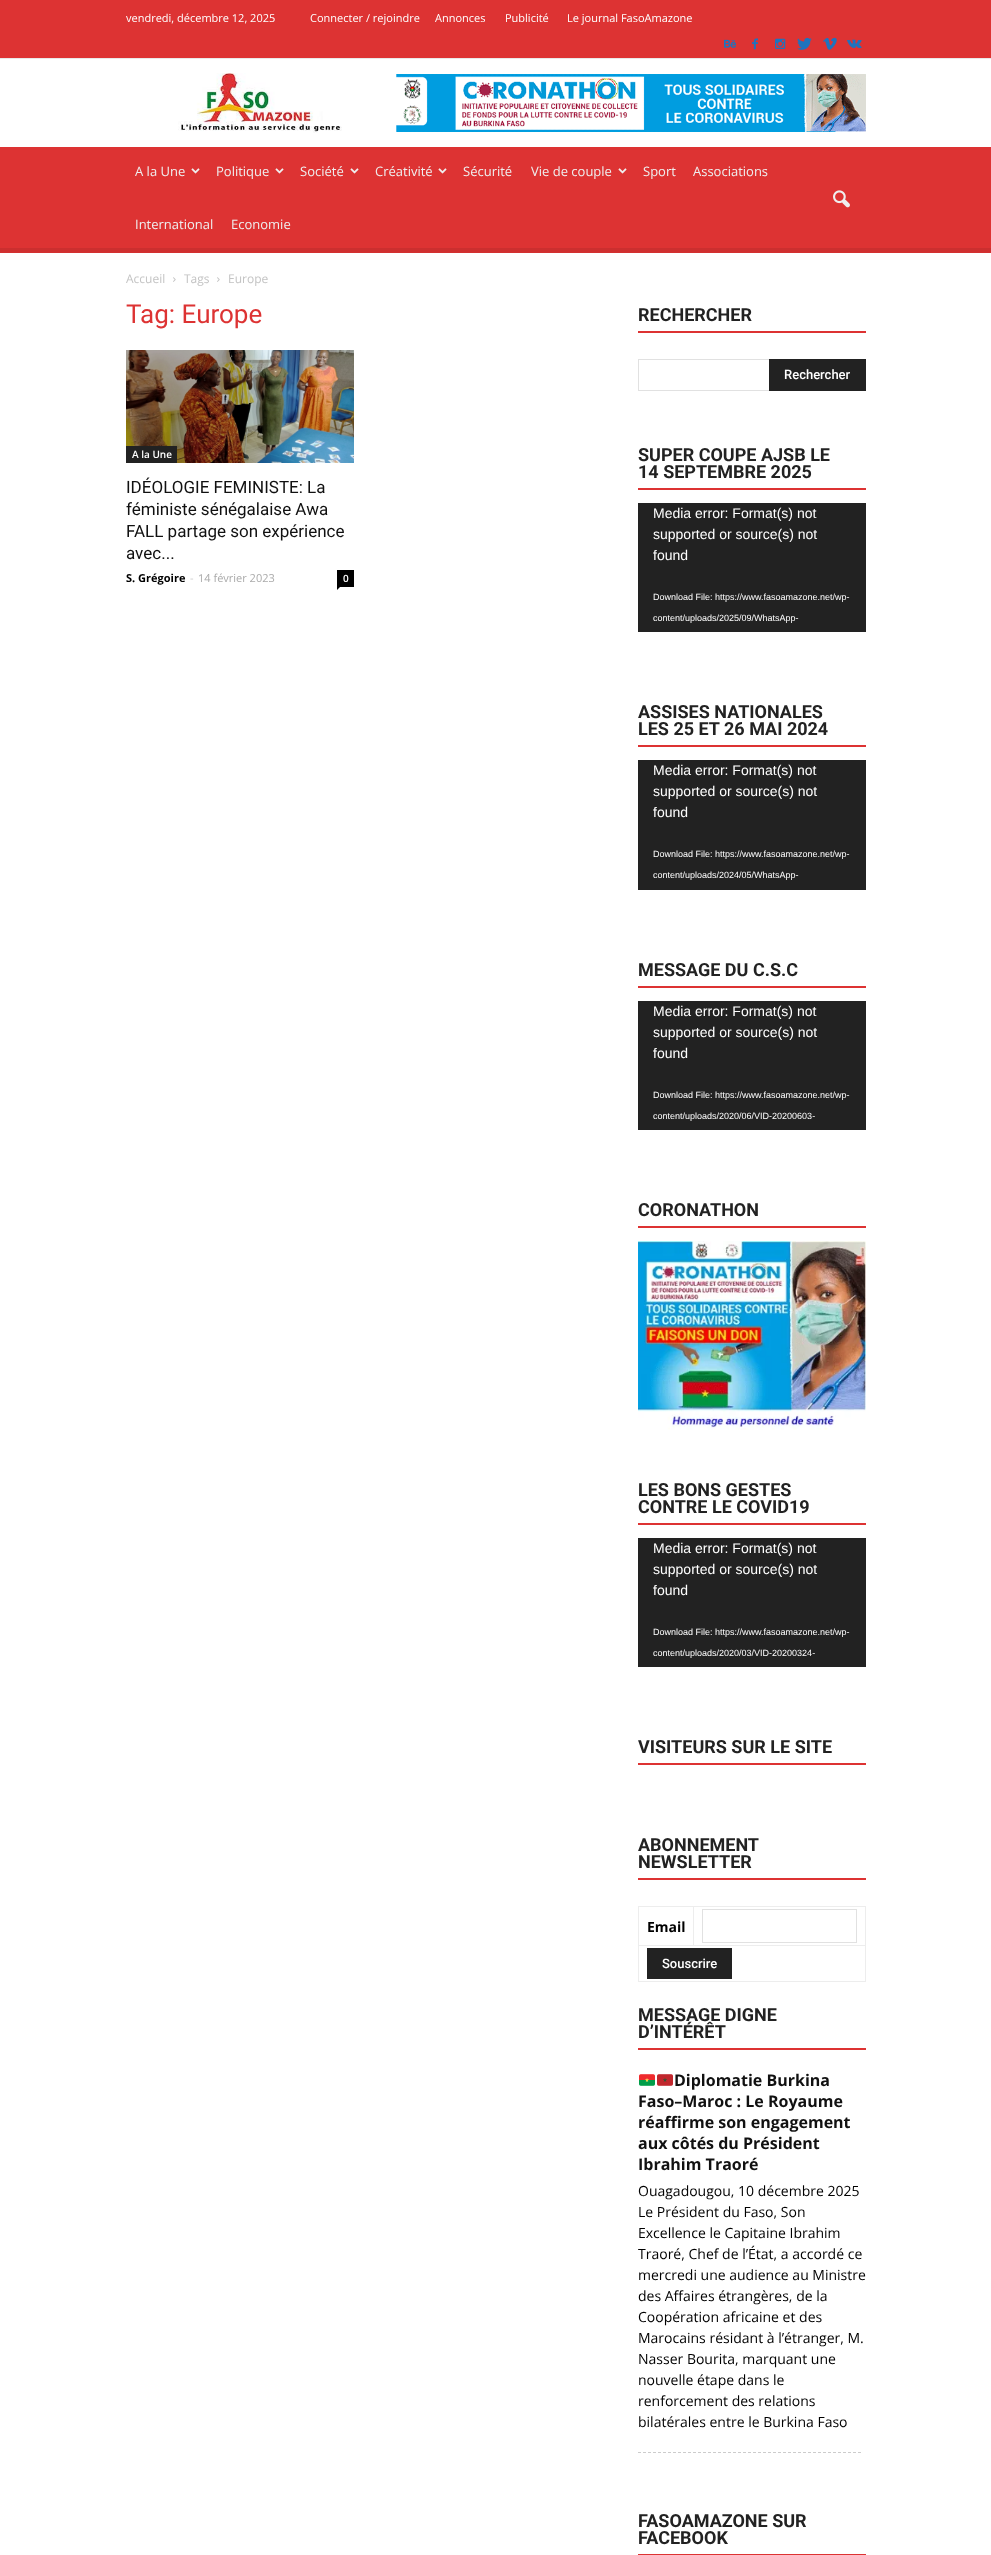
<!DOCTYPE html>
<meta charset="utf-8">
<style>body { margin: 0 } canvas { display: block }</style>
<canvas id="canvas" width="991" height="2555"></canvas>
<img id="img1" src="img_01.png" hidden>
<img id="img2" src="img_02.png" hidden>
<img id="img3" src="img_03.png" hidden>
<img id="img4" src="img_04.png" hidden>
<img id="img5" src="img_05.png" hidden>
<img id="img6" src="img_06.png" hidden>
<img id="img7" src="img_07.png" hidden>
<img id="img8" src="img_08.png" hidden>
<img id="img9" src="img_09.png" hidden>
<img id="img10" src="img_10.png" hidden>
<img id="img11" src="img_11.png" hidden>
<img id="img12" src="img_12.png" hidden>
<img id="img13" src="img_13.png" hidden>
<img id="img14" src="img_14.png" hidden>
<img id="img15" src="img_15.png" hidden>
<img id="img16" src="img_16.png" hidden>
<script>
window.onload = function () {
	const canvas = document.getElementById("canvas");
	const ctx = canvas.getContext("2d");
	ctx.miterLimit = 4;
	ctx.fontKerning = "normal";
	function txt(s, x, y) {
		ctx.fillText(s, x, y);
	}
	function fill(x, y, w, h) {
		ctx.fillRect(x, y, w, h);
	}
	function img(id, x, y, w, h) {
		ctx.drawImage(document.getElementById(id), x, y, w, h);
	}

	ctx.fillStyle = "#FFFFFF";
	fill(0, 0, 991, 2555);
	ctx.fillStyle = "#DD3333";
	fill(0, 0, 991, 58);
	ctx.fillStyle = "#E9E9E9";
	fill(0, 58, 991, 1);
	img("img1", 724, 39, 12, 9);
	img("img2", 752, 38, 6, 12);
	img("img3", 775, 38, 11, 11);
	img("img4", 797, 37, 15, 13);
	img("img5", 823, 37, 14, 13);
	img("img6", 847, 39, 15, 10);
	img("img7", 178, 73, 164, 60);
	img("img8", 396, 74, 470, 58);
	ctx.fillStyle = "#DD3333";
	fill(0, 147, 991, 106);
	img("img9", 191, 168, 9, 6);
	img("img9", 275, 168, 9, 6);
	img("img9", 350, 168, 9, 6);
	img("img9", 438, 168, 9, 6);
	img("img9", 618, 168, 9, 6);
	img("img10", 833, 190, 17, 18);
	img("img11", 0, 248, 991, 5);
	img("img12", 173, 277, 3, 5);
	img("img12", 217, 277, 3, 5);
	img("img13", 126, 350, 228, 113);
	ctx.fillStyle = "#222222";
	fill(126, 446, 51, 17);
	ctx.fillStyle = "#000000";
	fill(337, 570, 17, 17);
	ctx.beginPath();
	ctx.moveTo(337, 587);
	ctx.lineTo(340, 587);
	ctx.lineTo(337, 590);
	ctx.closePath();
	ctx.fill();
	ctx.fillStyle = "#DD3333";
	fill(638, 331, 228, 2);
	ctx.fillStyle = "#E1E1E1";
	fill(638, 359, 131, 1);
	fill(638, 390, 131, 1);
	fill(638, 359, 1, 32);
	ctx.fillStyle = "#222222";
	fill(769, 359, 97, 32);
	ctx.fillStyle = "#DD3333";
	fill(638, 488, 228, 2);
	ctx.fillStyle = "#222222";
	fill(638, 503, 228, 129);
	ctx.fillStyle = "#DD3333";
	fill(638, 745, 228, 2);
	ctx.fillStyle = "#222222";
	fill(638, 760, 228, 130);
	ctx.fillStyle = "#DD3333";
	fill(638, 986, 228, 2);
	ctx.fillStyle = "#222222";
	fill(638, 1001, 228, 129);
	ctx.fillStyle = "#DD3333";
	fill(638, 1226, 228, 2);
	img("img14", 638, 1241, 228, 189);
	fill(638, 1523, 228, 2);
	ctx.fillStyle = "#222222";
	fill(638, 1538, 228, 129);
	ctx.fillStyle = "#DD3333";
	fill(638, 1763, 228, 2);
	fill(638, 1878, 228, 2);
	ctx.fillStyle = "#EDEDED";
	fill(693, 1906, 173, 1);
	fill(638, 1945, 228, 1);
	fill(693, 1906, 1, 40);
	fill(638, 1906, 56, 1);
	fill(865, 1945, 1, 37);
	fill(638, 1981, 228, 1);
	fill(638, 1945, 1, 37);
	fill(638, 1906, 1, 40);
	fill(865, 1906, 1, 40);
	ctx.strokeStyle = "#E1E1E1";
	ctx.strokeRect(702.5, 1909.5, 154, 33);
	ctx.fillStyle = "#222222";
	fill(647, 1948, 85, 31);
	ctx.fillStyle = "#DD3333";
	fill(638, 2048, 228, 2);
	img("img15", 639, 2074, 16, 12);
	img("img16", 657, 2074, 16, 12);
	ctx.beginPath();
	ctx.moveTo(638, 2452.5);
	ctx.lineTo(861, 2452.5);
	ctx.strokeStyle = "#CCCCCC";
	ctx.setLineDash([3, 2]);
	ctx.stroke();
	fill(638, 2554, 228, 1);
	ctx.font = "11px Open Sans";
	ctx.fillStyle = "#FFFFFF";
	txt("vendredi, décembre 12, 2025", 126, 22);
	txt("Connecter / rejoindre", 310, 22);
	txt("Annonces", 435, 22);
	txt("Publicité", 505, 22);
	txt("Le journal FasoAmazone", 567, 22);
	ctx.font = "13px Open Sans";
	ctx.fillStyle = "#EFEFEF";
	txt("A la Une", 135, 176);
	txt("Politique", 216, 176);
	txt("Société", 300, 176);
	txt("Créativité", 375, 176);
	txt("Sécurité", 463, 176);
	txt("Vie de couple", 531, 176);
	txt("Sport", 643, 176);
	txt("Associations", 693, 176);
	txt("International", 135, 229);
	txt("Economie", 231, 229);
	ctx.font = "12px Open Sans";
	ctx.fillStyle = "#C3C3C3";
	txt("Accueil", 126, 283);
	txt("Tags", 184, 283);
	txt("Europe", 228, 283);
	ctx.font = "26px Roboto";
	ctx.fillStyle = "#DD3333";
	txt("Tag: Europe", 126, 323);
	ctx.font = "600 10px Open Sans";
	ctx.fillStyle = "#FFFFFF";
	txt("A la Une", 132, 458);
	ctx.font = "17px Roboto";
	ctx.fillStyle = "#111111";
	txt("IDÉOLOGIE FEMINISTE: La", 126, 493);
	txt("féministe sénégalaise Awa", 126, 515);
	txt("FALL partage son expérience", 126, 537);
	txt("avec...", 126, 559);
	ctx.font = "bold 11px Open Sans";
	ctx.fillStyle = "#000000";
	txt("S. Grégoire", 126, 582);
	ctx.font = "11px Open Sans";
	ctx.fillStyle = "#CCCCCC";
	txt("-", 190, 582);
	ctx.fillStyle = "#AAAAAA";
	txt("14 février 2023", 198, 582);
	ctx.font = "600 10px Open Sans";
	ctx.fillStyle = "#FFFFFF";
	txt("0", 343, 582);
	ctx.font = "bold 18px Roboto";
	ctx.fillStyle = "#222222";
	txt("RECHERCHER", 638, 321);
	ctx.font = "500 13px Roboto";
	ctx.fillStyle = "#FFFFFF";
	txt("Rechercher", 784, 379);
	ctx.font = "bold 18px Roboto";
	ctx.fillStyle = "#222222";
	txt("SUPER COUPE AJSB LE", 638, 461);
	txt("14 SEPTEMBRE 2025", 638, 478);
	ctx.font = "14px Liberation Sans";
	ctx.fillStyle = "#FFFFFF";
	txt("Media error: Format(s) not", 653, 518);
	txt("supported or source(s) not", 653, 539);
	txt("found", 653, 560);
	ctx.font = "9px Liberation Sans";
	txt("Download File: https://www.fasoamazone.net/wp-", 653, 600);
	txt("content/uploads/2025/09/WhatsApp-", 653, 621);
	ctx.font = "bold 18px Roboto";
	ctx.fillStyle = "#222222";
	txt("ASSISES NATIONALES", 638, 718);
	txt("LES 25 ET 26 MAI 2024", 638, 735);
	ctx.font = "14px Liberation Sans";
	ctx.fillStyle = "#FFFFFF";
	txt("Media error: Format(s) not", 653, 775);
	txt("supported or source(s) not", 653, 796);
	txt("found", 653, 817);
	ctx.font = "9px Liberation Sans";
	txt("Download File: https://www.fasoamazone.net/wp-", 653, 857);
	txt("content/uploads/2024/05/WhatsApp-", 653, 878);
	ctx.font = "bold 18px Roboto";
	ctx.fillStyle = "#222222";
	txt("MESSAGE DU C.S.C", 638, 976);
	ctx.font = "14px Liberation Sans";
	ctx.fillStyle = "#FFFFFF";
	txt("Media error: Format(s) not", 653, 1016);
	txt("supported or source(s) not", 653, 1037);
	txt("found", 653, 1058);
	ctx.font = "9px Liberation Sans";
	txt("Download File: https://www.fasoamazone.net/wp-", 653, 1098);
	txt("content/uploads/2020/06/VID-20200603-", 653, 1119);
	ctx.font = "bold 18px Roboto";
	ctx.fillStyle = "#222222";
	txt("CORONATHON", 638, 1216);
	txt("LES BONS GESTES", 638, 1496);
	txt("CONTRE LE COVID19", 638, 1513);
	ctx.font = "14px Liberation Sans";
	ctx.fillStyle = "#FFFFFF";
	txt("Media error: Format(s) not", 653, 1553);
	txt("supported or source(s) not", 653, 1574);
	txt("found", 653, 1595);
	ctx.font = "9px Liberation Sans";
	txt("Download File: https://www.fasoamazone.net/wp-", 653, 1635);
	txt("content/uploads/2020/03/VID-20200324-", 653, 1656);
	ctx.font = "bold 18px Roboto";
	ctx.fillStyle = "#222222";
	txt("VISITEURS SUR LE SITE", 638, 1753);
	txt("ABONNEMENT", 638, 1851);
	txt("NEWSLETTER", 638, 1868);
	ctx.font = "bold 14px Open Sans";
	ctx.fillStyle = "#000000";
	txt("Email", 647, 1932);
	ctx.font = "500 13px Roboto";
	ctx.fillStyle = "#FFFFFF";
	txt("Souscrire", 662, 1968);
	ctx.font = "bold 18px Roboto";
	ctx.fillStyle = "#222222";
	txt("MESSAGE DIGNE", 638, 2021);
	txt("D’INTÉRÊT", 638, 2038);
	ctx.font = "bold 16px Open Sans";
	ctx.fillStyle = "#111111";
	txt("Diplomatie Burkina", 674, 2086);
	txt("Faso–Maroc : Le Royaume", 638, 2107);
	txt("réaffirme son engagement", 638, 2128);
	txt("aux côtés du Président", 638, 2149);
	txt("Ibrahim Traoré", 638, 2170);
	ctx.font = "14px Open Sans";
	ctx.fillStyle = "#000000";
	txt("Ouagadougou, 10 décembre 2025", 638, 2196);
	txt("Le Président du Faso, Son", 638, 2217);
	txt("Excellence le Capitaine Ibrahim", 638, 2238);
	txt("Traoré, Chef de l’État, a accordé ce", 638, 2259);
	txt("mercredi une audience au Ministre", 638, 2280);
	txt("des Affaires étrangères, de la", 638, 2301);
	txt("Coopération africaine et des", 638, 2322);
	txt("Marocains résidant à l’étranger, M.", 638, 2343);
	txt("Nasser Bourita, marquant une", 638, 2364);
	txt("nouvelle étape dans le", 638, 2385);
	txt("renforcement des relations", 638, 2406);
	txt("bilatérales entre le Burkina Faso", 638, 2427);
	ctx.font = "bold 18px Roboto";
	ctx.fillStyle = "#222222";
	txt("FASOAMAZONE SUR", 638, 2527);
	txt("FACEBOOK", 638, 2544);
};
</script>
